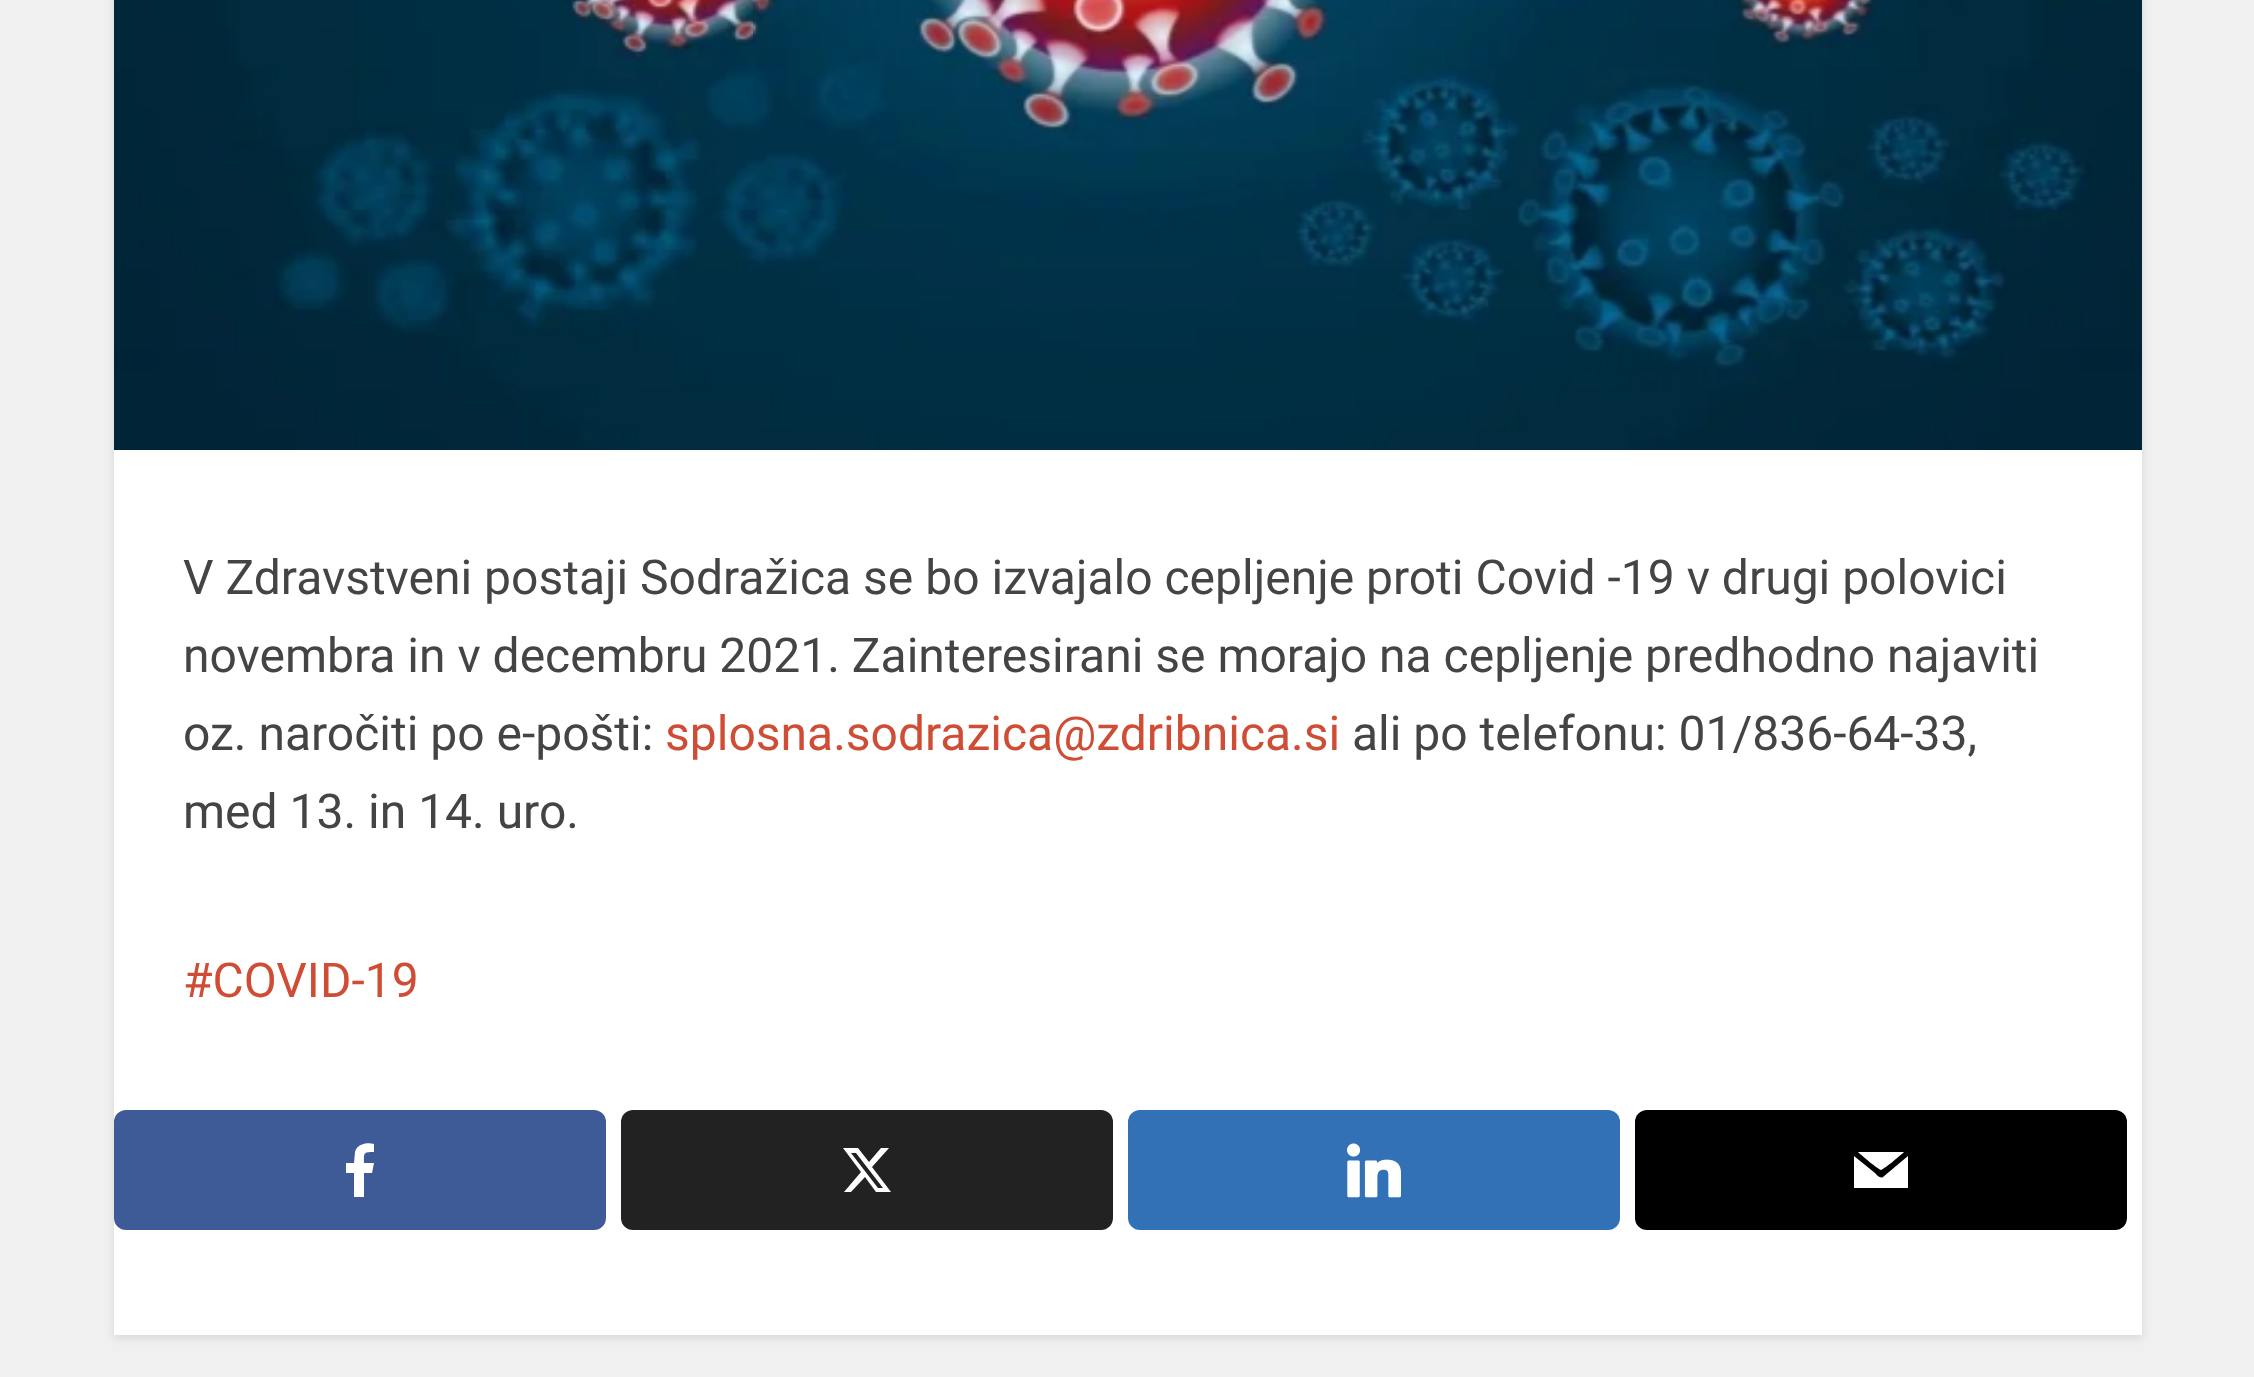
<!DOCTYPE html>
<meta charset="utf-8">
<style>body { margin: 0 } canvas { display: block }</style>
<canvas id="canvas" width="2254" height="1377"></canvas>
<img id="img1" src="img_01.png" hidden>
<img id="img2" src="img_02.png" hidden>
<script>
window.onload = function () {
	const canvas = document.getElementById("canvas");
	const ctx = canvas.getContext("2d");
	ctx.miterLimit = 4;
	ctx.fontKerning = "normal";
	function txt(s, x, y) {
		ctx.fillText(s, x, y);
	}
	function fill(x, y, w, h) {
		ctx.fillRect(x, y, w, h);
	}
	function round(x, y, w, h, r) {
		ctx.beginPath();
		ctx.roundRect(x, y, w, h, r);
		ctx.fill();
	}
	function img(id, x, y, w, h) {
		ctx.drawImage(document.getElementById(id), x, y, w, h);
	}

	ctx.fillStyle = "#F0F0F0";
	fill(0, 0, 2254, 1377);
	ctx.fillStyle = "rgba(0, 0, 0, 0.1)";
	ctx.filter = "blur(4.5px)";
	ctx.beginPath();
	ctx.rect(114, -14, 2028, 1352);
	ctx.fill();
	ctx.filter = "none";
	ctx.fillStyle = "#FFFFFF";
	fill(114, 450, 2028, 885);
	img("img1", 114, 0, 2028, 450);
	ctx.fillStyle = "#3E5B98";
	round(114, 1110, 492, 120, 12);
	ctx.fillStyle = "#FFFFFF";
	ctx.beginPath();
	ctx.moveTo(364, 1197);
	ctx.lineTo(364, 1173);
	ctx.lineTo(372, 1173);
	ctx.lineTo(374, 1163);
	ctx.lineTo(364, 1163);
	ctx.bezierCurveTo(364, 1153, 363, 1152, 374, 1152);
	ctx.lineTo(374, 1144);
	ctx.bezierCurveTo(367, 1142, 357, 1144, 355, 1152);
	ctx.lineTo(354, 1163);
	ctx.lineTo(346, 1163);
	ctx.lineTo(346, 1173);
	ctx.lineTo(354, 1173);
	ctx.lineTo(354, 1197);
	ctx.closePath();
	ctx.fill();
	ctx.fillStyle = "#222222";
	round(621, 1110, 492, 120, 12);
	ctx.fillStyle = "#FFFFFF";
	ctx.beginPath();
	ctx.moveTo(881, 1148);
	ctx.lineTo(889, 1148);
	ctx.lineTo(872, 1167);
	ctx.lineTo(891, 1192);
	ctx.lineTo(876, 1192);
	ctx.lineTo(865, 1177);
	ctx.lineTo(851, 1192);
	ctx.lineTo(844, 1192);
	ctx.lineTo(861, 1172);
	ctx.lineTo(843, 1148);
	ctx.lineTo(858, 1148);
	ctx.lineTo(869, 1162);
	ctx.closePath();
	ctx.moveTo(878, 1188);
	ctx.lineTo(883, 1188);
	ctx.lineTo(856, 1153);
	ctx.lineTo(851, 1153);
	ctx.closePath();
	ctx.fill();
	ctx.fillStyle = "#3371B7";
	round(1128, 1110, 492, 120, 12);
	img("img2", 1347, 1143, 54, 55);
	ctx.fillStyle = "#000000";
	round(1635, 1110, 492, 120, 12);
	ctx.fillStyle = "#FFFFFF";
	ctx.beginPath();
	ctx.moveTo(1883, 1177);
	ctx.bezierCurveTo(1880, 1179, 1877, 1175, 1875, 1173);
	ctx.lineTo(1854, 1156);
	ctx.lineTo(1854, 1188);
	ctx.lineTo(1908, 1188);
	ctx.lineTo(1908, 1156);
	ctx.closePath();
	ctx.moveTo(1881, 1170);
	ctx.bezierCurveTo(1883, 1170, 1901, 1155, 1904, 1152);
	ctx.lineTo(1858, 1152);
	ctx.bezierCurveTo(1861, 1155, 1879, 1170, 1881, 1170);
	ctx.closePath();
	ctx.fill();
	ctx.font = "48px Roboto";
	ctx.fillStyle = "#444444";
	txt("V Zdravstveni postaji Sodražica se bo izvajalo cepljenje proti Covid -19 v drugi polovici", 183, 594);
	txt("novembra in v decembru 2021. Zainteresirani se morajo na cepljenje predhodno najaviti", 183, 672);
	txt("oz. naročiti po e-pošti:", 183, 750);
	ctx.fillStyle = "#CF4D35";
	txt("splosna.sodrazica@zdribnica.si", 665, 750);
	ctx.fillStyle = "#444444";
	txt("ali po telefonu: 01/836-64-33,", 1352, 750);
	txt("med 13. in 14. uro.", 183, 828);
	ctx.fillStyle = "#CF4D35";
	txt("#COVID-19", 183, 997);
};
</script>
